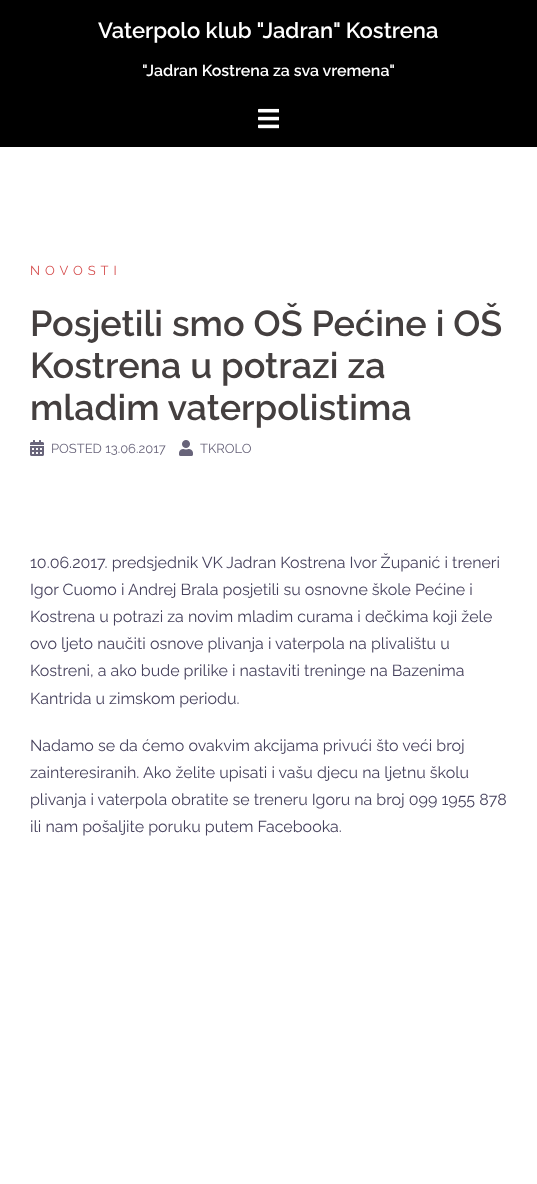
<!DOCTYPE html>
<meta charset="utf-8">
<style>body { margin: 0 } canvas { display: block }</style>
<canvas id="canvas" width="537" height="1184"></canvas>
<img id="img1" src="img_01.png" hidden>
<img id="img2" src="img_02.png" hidden>
<img id="img3" src="img_03.png" hidden>
<script>
window.onload = function () {
	const canvas = document.getElementById("canvas");
	const ctx = canvas.getContext("2d");
	ctx.miterLimit = 4;
	ctx.fontKerning = "normal";
	function txt(s, x, y) {
		ctx.fillText(s, x, y);
	}
	function fill(x, y, w, h) {
		ctx.fillRect(x, y, w, h);
	}
	function img(id, x, y, w, h) {
		ctx.drawImage(document.getElementById(id), x, y, w, h);
	}

	ctx.fillStyle = "#FFFFFF";
	fill(0, 0, 537, 1184);
	ctx.fillStyle = "#000000";
	fill(0, 0, 537, 147);
	img("img1", 258, 108, 21, 21);
	img("img2", 30, 440, 14, 16);
	img("img3", 179, 440, 14, 16);
	ctx.font = "600 22px Raleway";
	ctx.fillStyle = "#FFFFFF";
	txt("Vaterpolo klub \"Jadran\" Kostrena", 98, 38);
	ctx.font = "600 16px Raleway";
	txt("\"Jadran Kostrena za sva vremena\"", 142, 76);
	ctx.letterSpacing = "5px";
	ctx.font = "13px Raleway";
	ctx.fillStyle = "#D65050";
	txt("NOVOSTI", 30, 275);
	ctx.letterSpacing = "0px";
	ctx.font = "600 36px Raleway";
	ctx.fillStyle = "#443F3F";
	txt("Posjetili smo OŠ Pećine i OŠ", 30, 336);
	txt("Kostrena u potrazi za", 30, 378);
	txt("mladim vaterpolistima", 30, 420);
	ctx.font = "13px Raleway";
	ctx.fillStyle = "#68647A";
	txt("POSTED 13.06.2017", 51, 453);
	txt("TKROLO", 200, 453);
	ctx.font = "16px Raleway";
	ctx.fillStyle = "#47425D";
	txt("10.06.2017. predsjednik VK Jadran Kostrena Ivor Županić i treneri", 30, 568);
	txt("Igor Cuomo i Andrej Brala posjetili su osnovne škole Pećine i", 30, 595);
	txt("Kostrena u potrazi za novim mladim curama i dečkima koji žele", 30, 622);
	txt("ovo ljeto naučiti osnove plivanja i vaterpola na plivalištu u", 30, 649);
	txt("Kostreni, a ako bude prilike i nastaviti treninge na Bazenima", 30, 676);
	txt("Kantrida u zimskom periodu.", 30, 704);
	txt("Nadamo se da ćemo ovakvim akcijama privući što veći broj", 30, 751);
	txt("zainteresiranih. Ako želite upisati i vašu djecu na ljetnu školu", 30, 778);
	txt("plivanja i vaterpola obratite se treneru Igoru na broj 099 1955 878", 30, 805);
	txt("ili nam pošaljite poruku putem Facebooka.", 30, 832);
};
</script>
